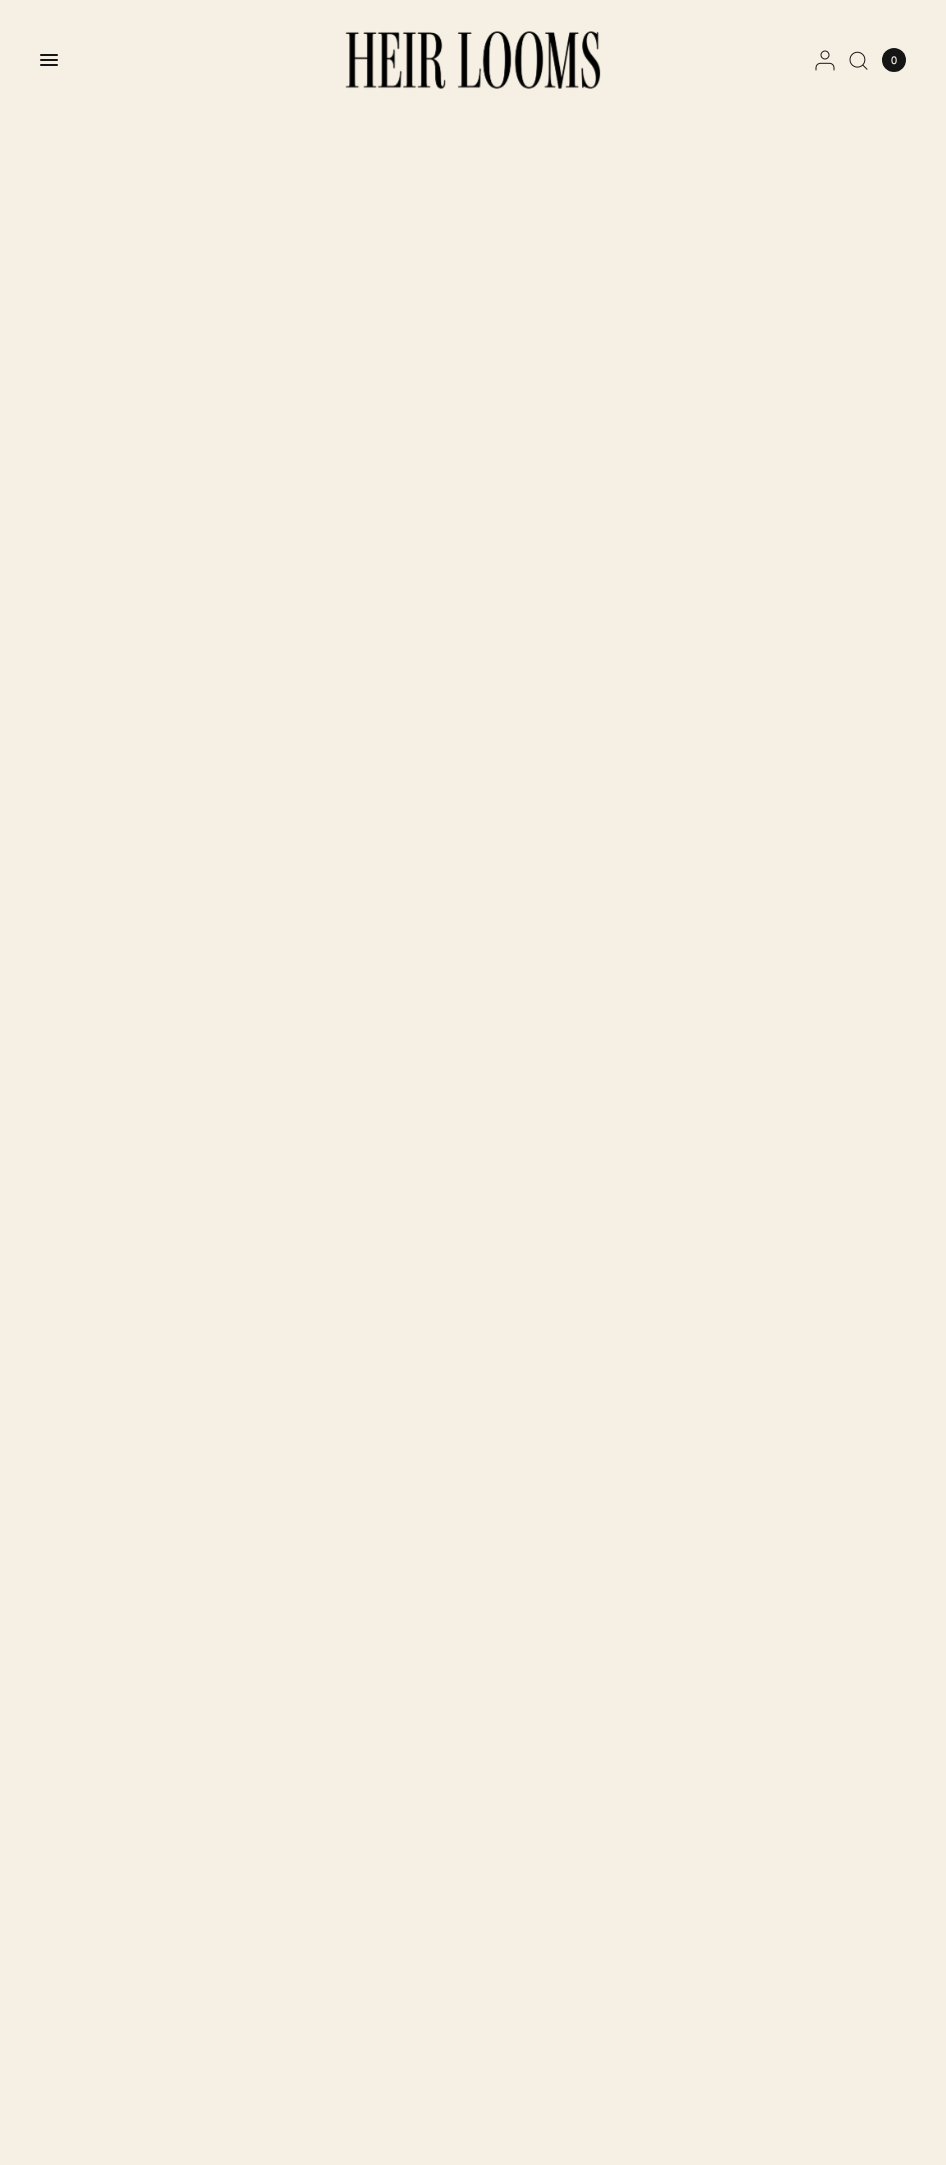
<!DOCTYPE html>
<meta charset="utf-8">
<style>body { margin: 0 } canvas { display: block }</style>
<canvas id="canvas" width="946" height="2165"></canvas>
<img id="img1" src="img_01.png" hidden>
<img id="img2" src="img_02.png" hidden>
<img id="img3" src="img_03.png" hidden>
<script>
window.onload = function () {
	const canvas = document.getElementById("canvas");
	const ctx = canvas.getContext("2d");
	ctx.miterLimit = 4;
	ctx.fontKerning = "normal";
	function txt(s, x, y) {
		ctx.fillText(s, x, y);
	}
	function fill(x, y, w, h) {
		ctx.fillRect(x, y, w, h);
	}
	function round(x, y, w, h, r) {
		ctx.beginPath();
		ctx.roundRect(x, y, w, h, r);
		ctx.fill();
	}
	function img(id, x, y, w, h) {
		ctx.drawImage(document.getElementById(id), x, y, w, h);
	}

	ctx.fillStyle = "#F6F0E4";
	fill(0, 0, 946, 2165);
	ctx.fillStyle = "#151515";
	round(40, 54, 18, 2, 1);
	round(40, 59, 18, 2, 1);
	round(40, 64, 18, 2, 1);
	img("img1", 345, 31, 256, 58);
	img("img2", 815, 50, 20, 21);
	img("img3", 849, 51, 19, 19);
	ctx.beginPath();
	ctx.arc(894, 60, 12, 0, Math.PI * 2);
	ctx.fill();
	ctx.font = "11px Helvetica";
	ctx.fillStyle = "#F6F0E4";
	txt("0", 891, 64);
};
</script>
